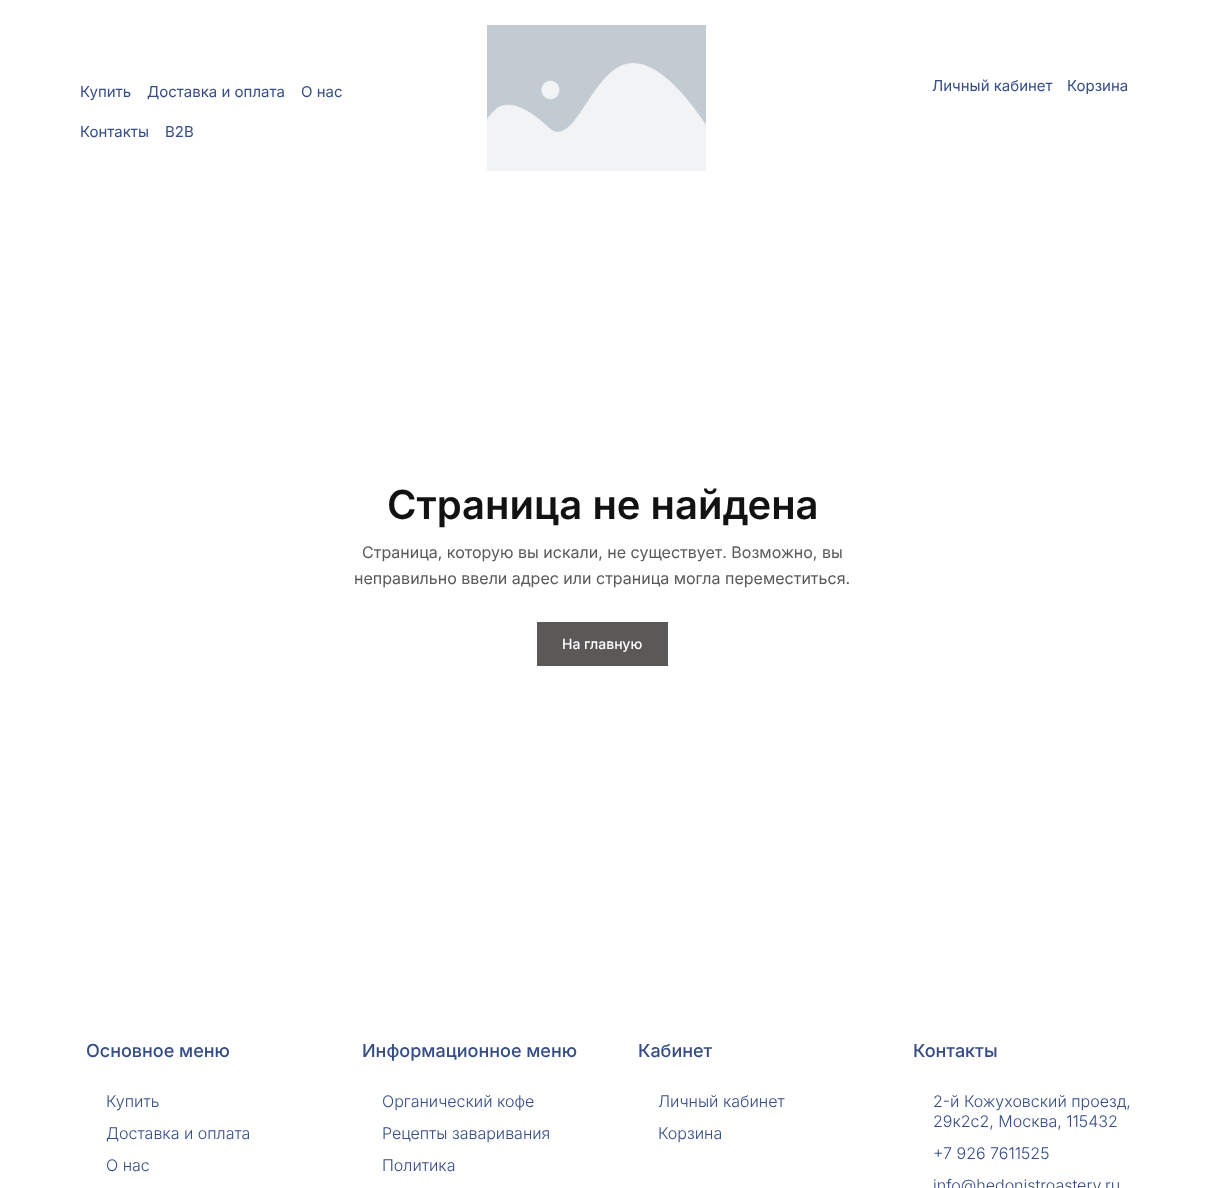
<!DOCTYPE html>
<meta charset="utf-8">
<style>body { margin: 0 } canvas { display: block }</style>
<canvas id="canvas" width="1205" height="1188"></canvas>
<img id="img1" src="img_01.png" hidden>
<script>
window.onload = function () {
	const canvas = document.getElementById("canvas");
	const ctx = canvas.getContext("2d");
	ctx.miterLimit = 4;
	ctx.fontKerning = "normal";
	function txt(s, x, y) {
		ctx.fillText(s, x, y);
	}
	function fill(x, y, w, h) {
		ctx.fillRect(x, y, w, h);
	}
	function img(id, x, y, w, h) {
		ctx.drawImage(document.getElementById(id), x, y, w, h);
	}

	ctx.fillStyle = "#FFFFFF";
	fill(0, 0, 1205, 1188);
	img("img1", 487, 25, 219, 146);
	ctx.fillStyle = "#5A5958";
	fill(537, 622, 131, 44);
	ctx.font = "15px Inter";
	ctx.fillStyle = "#354C86";
	txt("Купить", 80, 97);
	txt("Доставка и оплата", 147, 97);
	txt("О нас", 301, 97);
	txt("Контакты", 80, 137);
	txt("B2B", 165, 137);
	txt("Личный кабинет", 932, 91);
	txt("Корзина", 1067, 91);
	ctx.font = "600 40px Inter";
	ctx.fillStyle = "#121212";
	txt("Страница не найдена", 387, 519);
	ctx.font = "16px Inter";
	ctx.fillStyle = "#5A5958";
	txt("Страница, которую вы искали, не существует. Возможно, вы", 362, 558);
	txt("неправильно ввели адрес или страница могла переместиться.", 354, 584);
	ctx.font = "500 14px Inter";
	ctx.fillStyle = "#FFFFFF";
	txt("На главную", 562, 649);
	ctx.font = "500 18px Inter";
	ctx.fillStyle = "#354C86";
	txt("Основное меню", 86, 1057);
	ctx.font = "300 16px Inter";
	txt("Купить", 106, 1107);
	txt("Доставка и оплата", 106, 1139);
	txt("О нас", 106, 1171);
	ctx.font = "500 18px Inter";
	txt("Информационное меню", 362, 1057);
	ctx.font = "300 16px Inter";
	txt("Органический кофе", 382, 1107);
	txt("Рецепты заваривания", 382, 1139);
	txt("Политика", 382, 1171);
	ctx.font = "500 18px Inter";
	txt("Кабинет", 638, 1057);
	ctx.font = "300 16px Inter";
	txt("Личный кабинет", 658, 1107);
	txt("Корзина", 658, 1139);
	ctx.font = "500 18px Inter";
	txt("Контакты", 913, 1057);
	ctx.font = "300 16px Inter";
	txt("2-й Кожуховский проезд,", 933, 1107);
	txt("29к2с2, Москва, 115432", 933, 1127);
	txt("+7 926 7611525", 933, 1159);
	txt("info@hedonistroastery.ru", 933, 1191);
};
</script>
